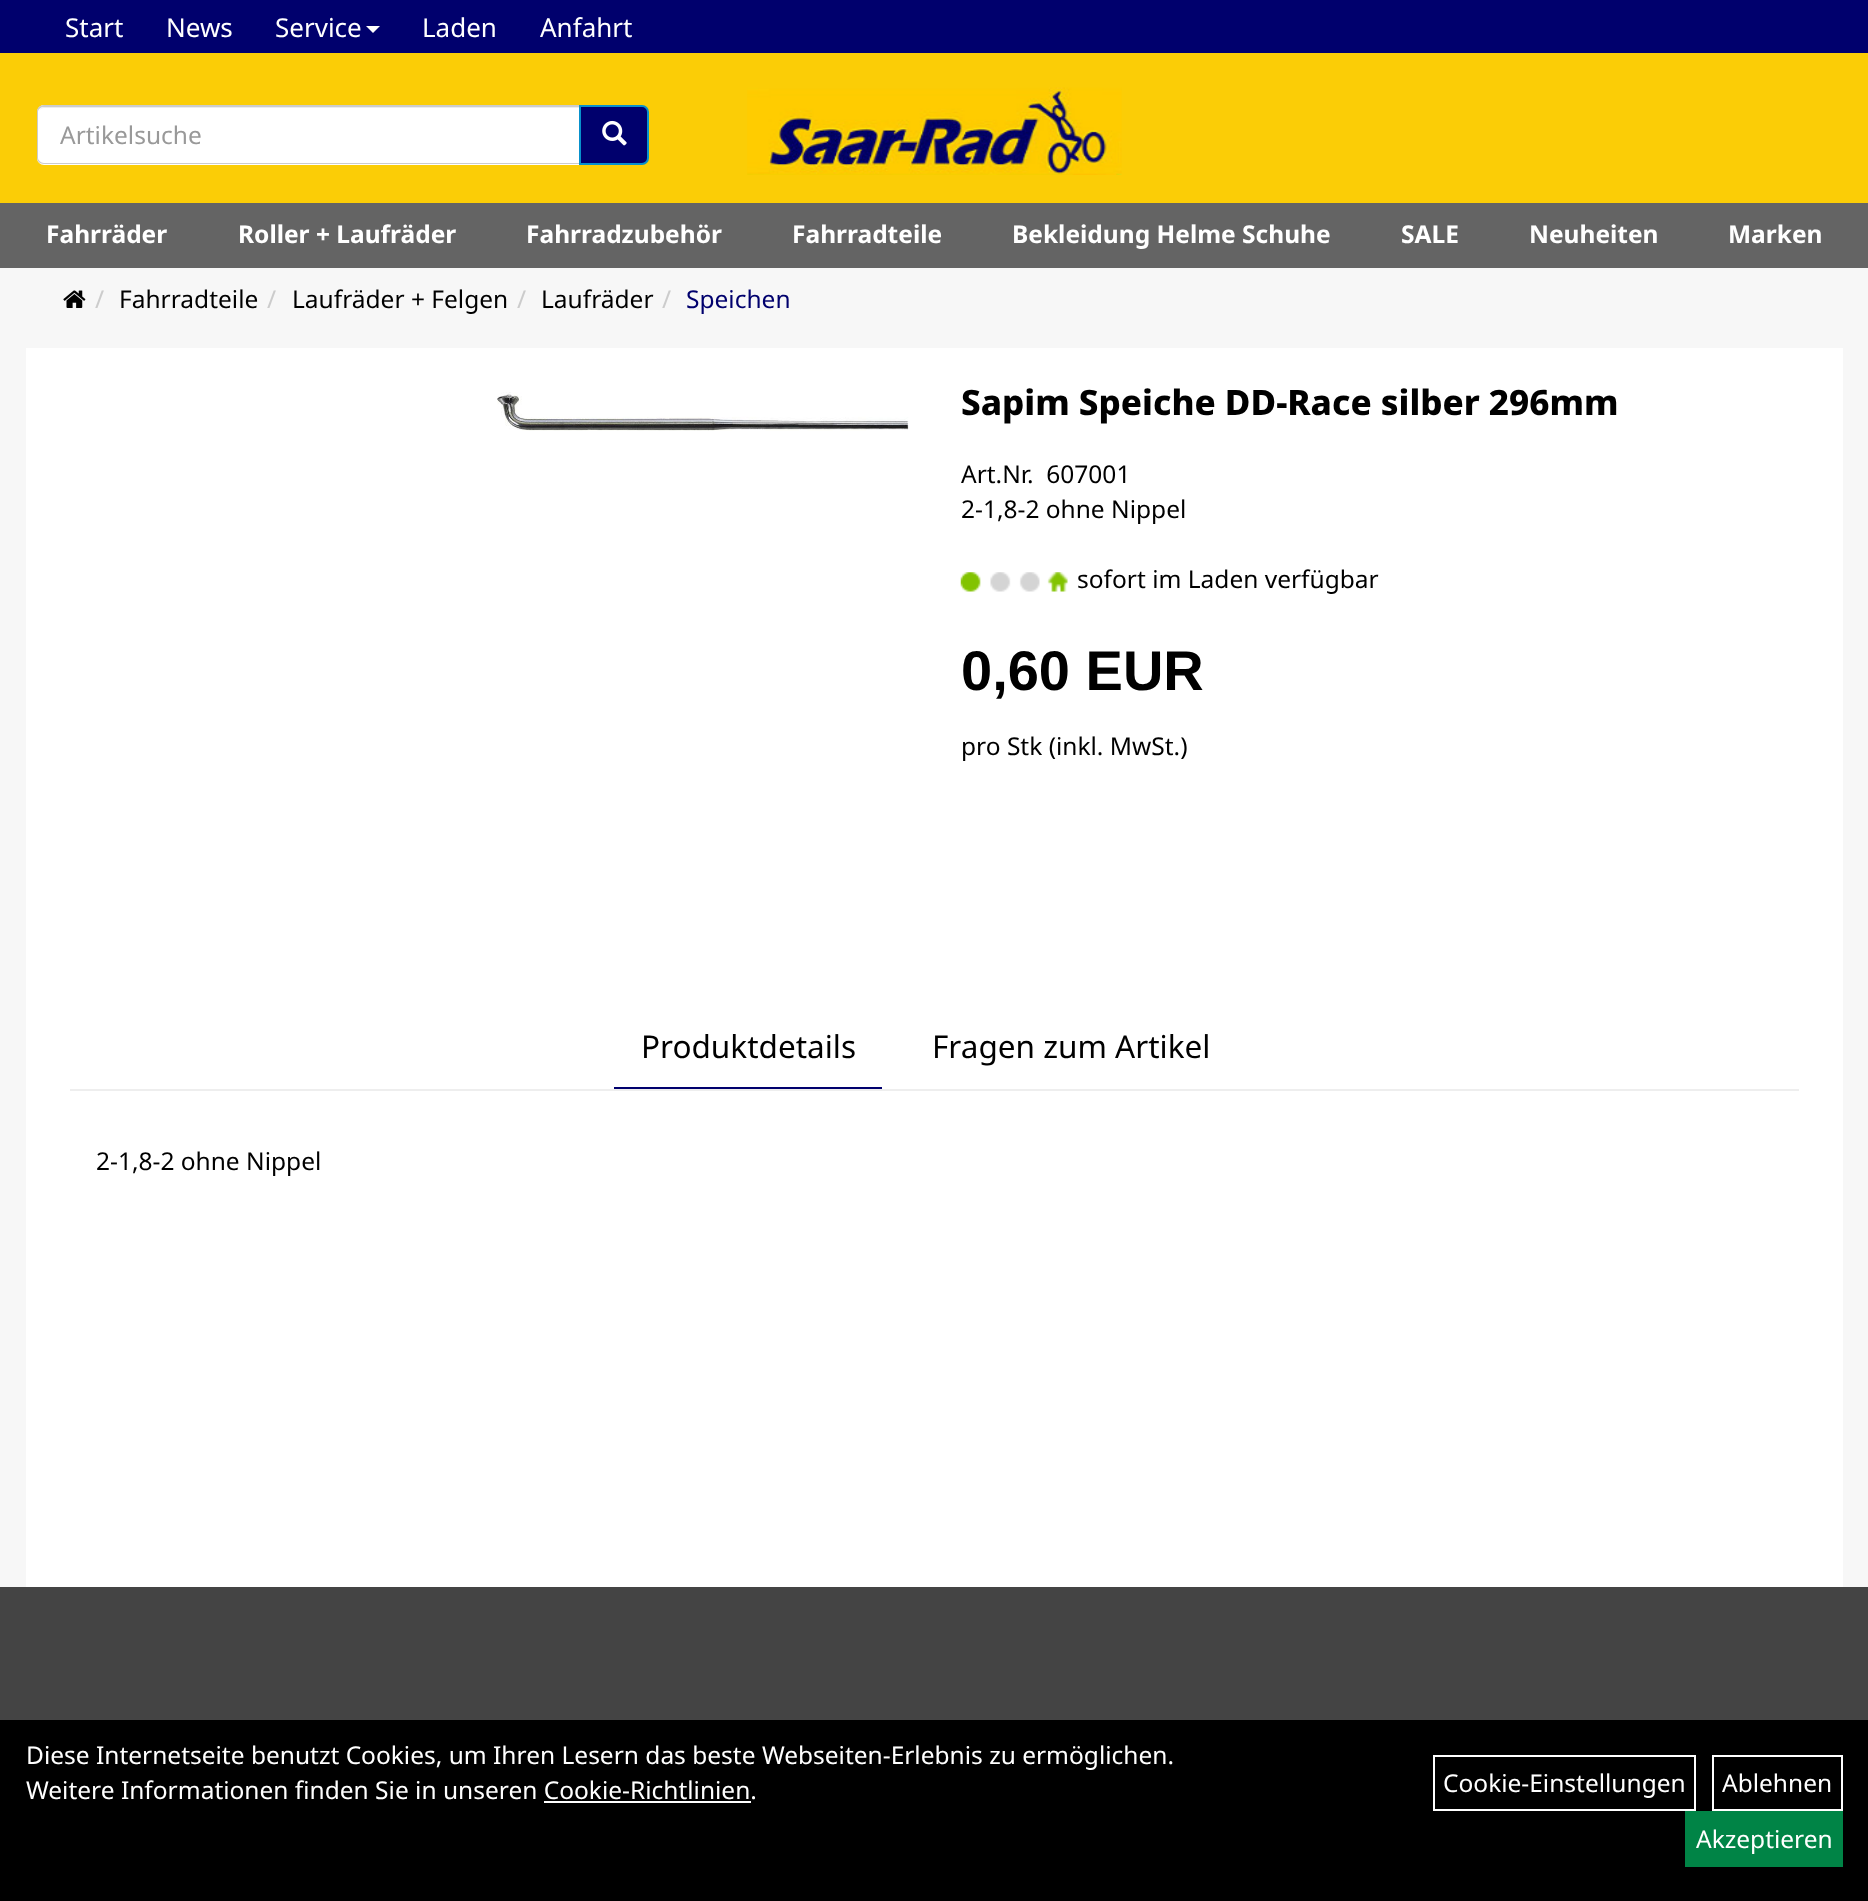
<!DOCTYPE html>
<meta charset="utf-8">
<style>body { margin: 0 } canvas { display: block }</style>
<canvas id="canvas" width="1868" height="1901"></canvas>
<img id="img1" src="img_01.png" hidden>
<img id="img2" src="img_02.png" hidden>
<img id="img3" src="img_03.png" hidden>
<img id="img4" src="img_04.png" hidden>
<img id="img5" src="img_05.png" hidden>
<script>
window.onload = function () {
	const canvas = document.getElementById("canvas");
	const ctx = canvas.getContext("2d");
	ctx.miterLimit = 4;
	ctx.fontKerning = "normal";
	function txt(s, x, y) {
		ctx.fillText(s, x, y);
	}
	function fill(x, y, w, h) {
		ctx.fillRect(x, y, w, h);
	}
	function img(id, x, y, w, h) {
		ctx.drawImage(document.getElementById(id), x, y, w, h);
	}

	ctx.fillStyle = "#F7F7F7";
	fill(0, 0, 1868, 1901);
	ctx.fillStyle = "#00006D";
	fill(0, 0, 1868, 53);
	ctx.fillStyle = "#FFFFFF";
	ctx.beginPath();
	ctx.moveTo(366, 26);
	ctx.lineTo(380, 26);
	ctx.lineTo(373, 33);
	ctx.closePath();
	ctx.fill();
	ctx.fillStyle = "#FBCD06";
	fill(0, 53, 1868, 150);
	ctx.fillStyle = "#FFFFFF";
	ctx.beginPath();
	ctx.roundRect(37, 105, 542, 60, [7, 0, 0, 7]);
	ctx.fill();
	ctx.fillStyle = "#ECECEC";
	ctx.beginPath();
	ctx.moveTo(44, 108);
	ctx.lineTo(579, 108);
	ctx.lineTo(579, 107);
	ctx.lineTo(44, 107);
	ctx.bezierCurveTo(42, 107, 40, 109, 39, 111);
	ctx.bezierCurveTo(40, 109, 42, 108, 44, 108);
	ctx.closePath();
	ctx.fill();
	ctx.fillStyle = "#CCCCCC";
	ctx.beginPath();
	ctx.moveTo(44, 105);
	ctx.lineTo(579, 105);
	ctx.lineTo(579, 164);
	ctx.lineTo(44, 164);
	ctx.bezierCurveTo(40, 164, 37, 161, 37, 158);
	ctx.lineTo(37, 112);
	ctx.bezierCurveTo(37, 108, 40, 105, 44, 105);
	ctx.closePath();
	ctx.moveTo(44, 107);
	ctx.lineTo(579, 107);
	ctx.lineTo(579, 163);
	ctx.lineTo(44, 163);
	ctx.bezierCurveTo(41, 163, 38, 160, 38, 158);
	ctx.lineTo(38, 112);
	ctx.bezierCurveTo(38, 109, 41, 107, 44, 107);
	ctx.closePath();
	ctx.fill("evenodd");
	ctx.fillStyle = "#00006D";
	ctx.beginPath();
	ctx.roundRect(580, 106, 68, 58, [0, 6, 6, 0]);
	ctx.fill();
	ctx.strokeStyle = "#0891CC";
	ctx.lineWidth = 2;
	ctx.stroke();
	img("img1", 602, 120, 25, 26);
	img("img2", 747, 87, 375, 88);
	ctx.fillStyle = "#646464";
	fill(0, 203, 1868, 65);
	img("img3", 63, 290, 23, 18);
	ctx.fillStyle = "#FFFFFF";
	fill(26, 348, 1817, 1239);
	img("img4", 497, 392, 412, 39);
	img("img5", 960, 572, 108, 20);
	ctx.fillStyle = "#00006D";
	fill(614, 1087, 268, 2);
	ctx.fillStyle = "#EEEEEE";
	fill(70, 1089, 1729, 2);
	ctx.fillStyle = "#444444";
	fill(0, 1587, 1868, 133);
	ctx.fillStyle = "#000000";
	fill(0, 1720, 1868, 181);
	ctx.fillStyle = "#FFFFFF";
	fill(544, 1801, 207, 2);
	ctx.strokeStyle = "#FFFFFF";
	ctx.strokeRect(1434, 1756, 261, 54);
	ctx.strokeRect(1713, 1756, 129, 54);
	ctx.fillStyle = "#008446";
	fill(1685, 1811, 158, 56);
	ctx.font = "26px Noto Sans";
	ctx.fillStyle = "#FFFFFF";
	txt("Start", 65, 37);
	txt("News", 166, 37);
	txt("Service", 275, 37);
	txt("Laden", 422, 37);
	txt("Anfahrt", 540, 37);
	ctx.font = "24.5px Noto Sans";
	ctx.fillStyle = "#999999";
	txt("Artikelsuche", 60, 144);
	ctx.font = "bold 24.5px Noto Sans";
	ctx.fillStyle = "#FFFFFF";
	txt("Fahrräder", 46, 243);
	txt("Roller + Laufräder", 238, 243);
	txt("Fahrradzubehör", 526, 243);
	txt("Fahrradteile", 792, 243);
	txt("Bekleidung Helme Schuhe", 1012, 243);
	txt("SALE", 1401, 243);
	txt("Neuheiten", 1529, 243);
	txt("Marken", 1728, 243);
	ctx.font = "24.5px Noto Sans";
	ctx.fillStyle = "#CCCCCC";
	txt("/", 95, 308);
	ctx.fillStyle = "#000000";
	txt("Fahrradteile", 119, 308);
	ctx.fillStyle = "#CCCCCC";
	txt("/", 267, 308);
	ctx.fillStyle = "#000000";
	txt("Laufräder + Felgen", 292, 308);
	ctx.fillStyle = "#CCCCCC";
	txt("/", 517, 308);
	ctx.fillStyle = "#000000";
	txt("Laufräder", 541, 308);
	ctx.fillStyle = "#CCCCCC";
	txt("/", 662, 308);
	ctx.fillStyle = "#00006D";
	txt("Speichen", 686, 308);
	ctx.font = "800 35px Noto Sans";
	ctx.fillStyle = "#000000";
	txt("Sapim Speiche DD-Race silber 296mm", 961, 415);
	ctx.font = "24.5px Noto Sans";
	txt("Art.Nr.  607001", 961, 483);
	txt("2-1,8-2 ohne Nippel", 961, 518);
	txt("sofort im Laden verfügbar", 1077, 588);
	ctx.font = "bold 56px Liberation Sans";
	txt("0,60 EUR", 961, 690);
	ctx.font = "24.5px Noto Sans";
	txt("pro Stk (inkl. MwSt.)", 961, 755);
	ctx.font = "31.5px Noto Sans";
	txt("Produktdetails", 641, 1058);
	txt("Fragen zum Artikel", 932, 1058);
	ctx.font = "24.5px Noto Sans";
	txt("2-1,8-2 ohne Nippel", 96, 1170);
	ctx.fillStyle = "#FFFFFF";
	txt("Diese Internetseite benutzt Cookies, um Ihren Lesern das beste Webseiten-Erlebnis zu ermöglichen.", 26, 1764);
	txt("Weitere Informationen finden Sie in unseren Cookie-Richtlinien.", 26, 1799);
	txt("Cookie-Einstellungen", 1443, 1792);
	txt("Ablehnen", 1722, 1792);
	txt("Akzeptieren", 1696, 1848);
};
</script>
